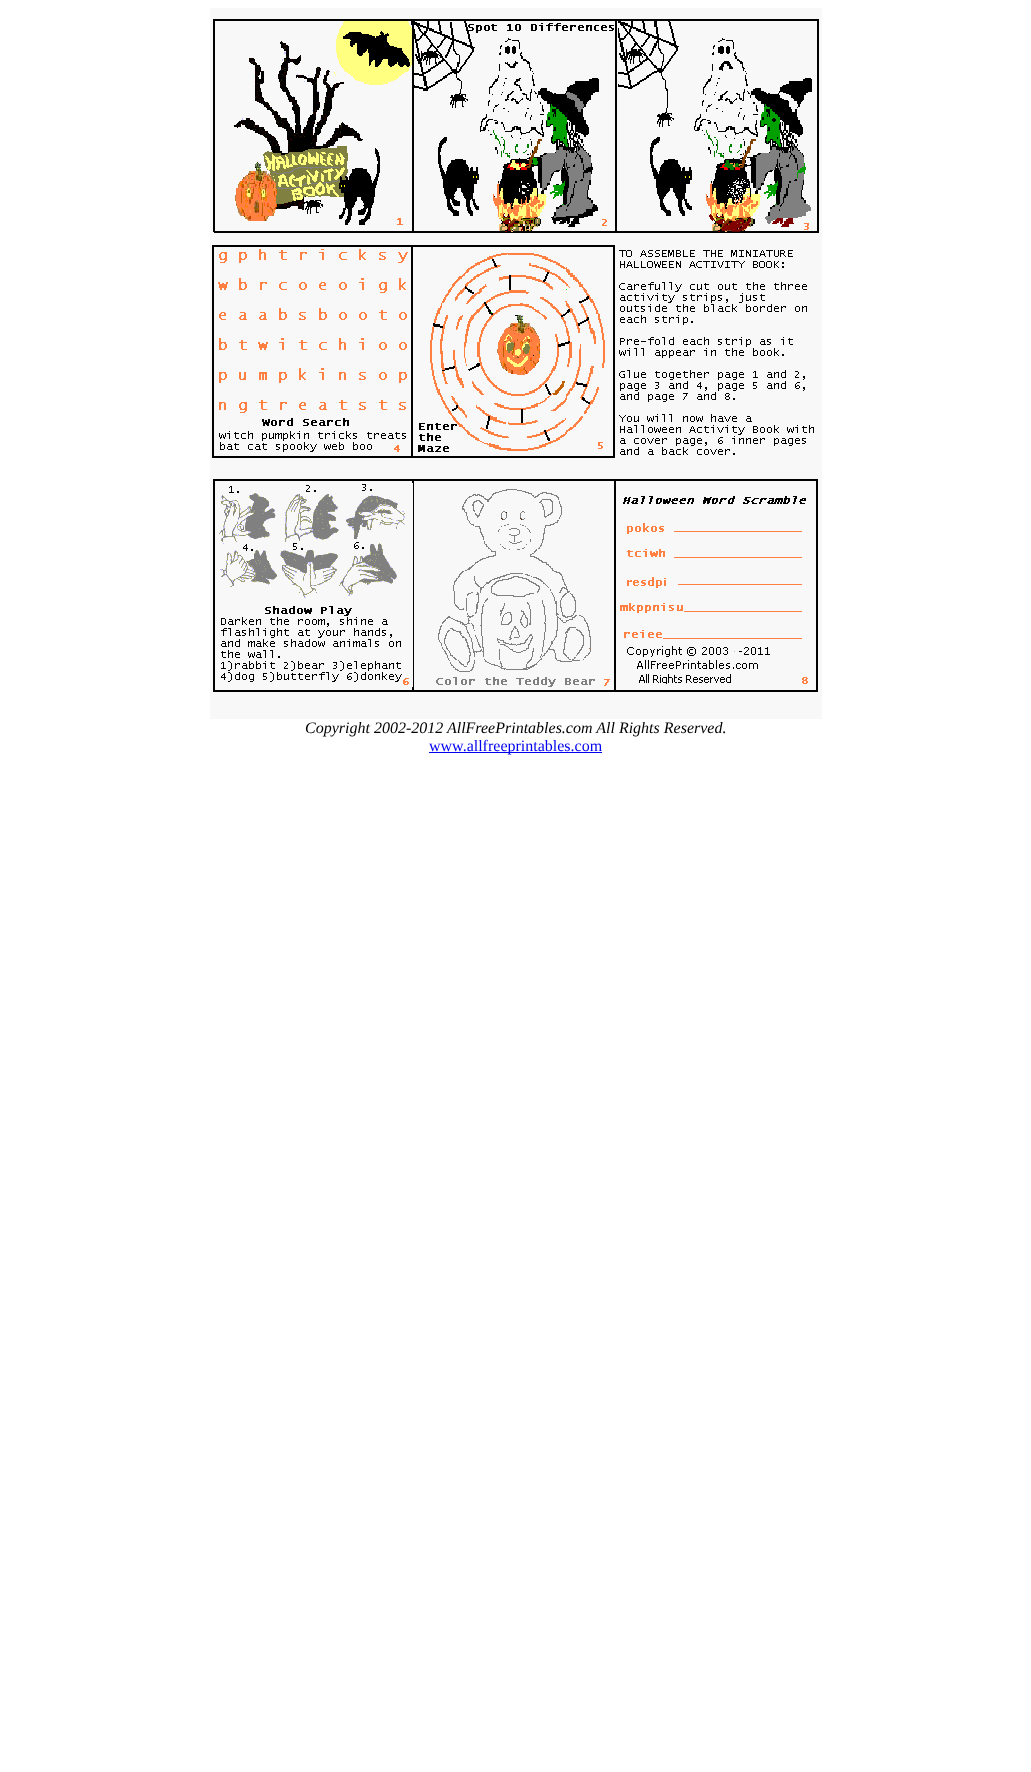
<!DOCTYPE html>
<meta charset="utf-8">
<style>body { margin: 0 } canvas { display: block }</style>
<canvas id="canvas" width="1031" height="1772"></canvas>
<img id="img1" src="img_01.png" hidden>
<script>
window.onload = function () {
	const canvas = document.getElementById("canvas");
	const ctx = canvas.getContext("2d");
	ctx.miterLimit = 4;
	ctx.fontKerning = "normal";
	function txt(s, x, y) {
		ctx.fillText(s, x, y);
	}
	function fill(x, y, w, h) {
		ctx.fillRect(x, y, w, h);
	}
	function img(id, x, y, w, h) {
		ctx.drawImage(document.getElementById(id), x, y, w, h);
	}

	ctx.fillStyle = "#FFFFFF";
	fill(0, 0, 1031, 1772);
	img("img1", 210, 8, 612, 711);
	ctx.fillStyle = "#0000EE";
	fill(429, 752, 173, 1);
	ctx.font = "italic 16px Liberation Serif";
	ctx.fillStyle = "#000000";
	txt("Copyright 2002-2012 AllFreePrintables.com All Rights Reserved.", 305, 733);
	ctx.font = "16px Liberation Serif";
	ctx.fillStyle = "#0000EE";
	txt("www.allfreeprintables.com", 429, 751);
};
</script>
